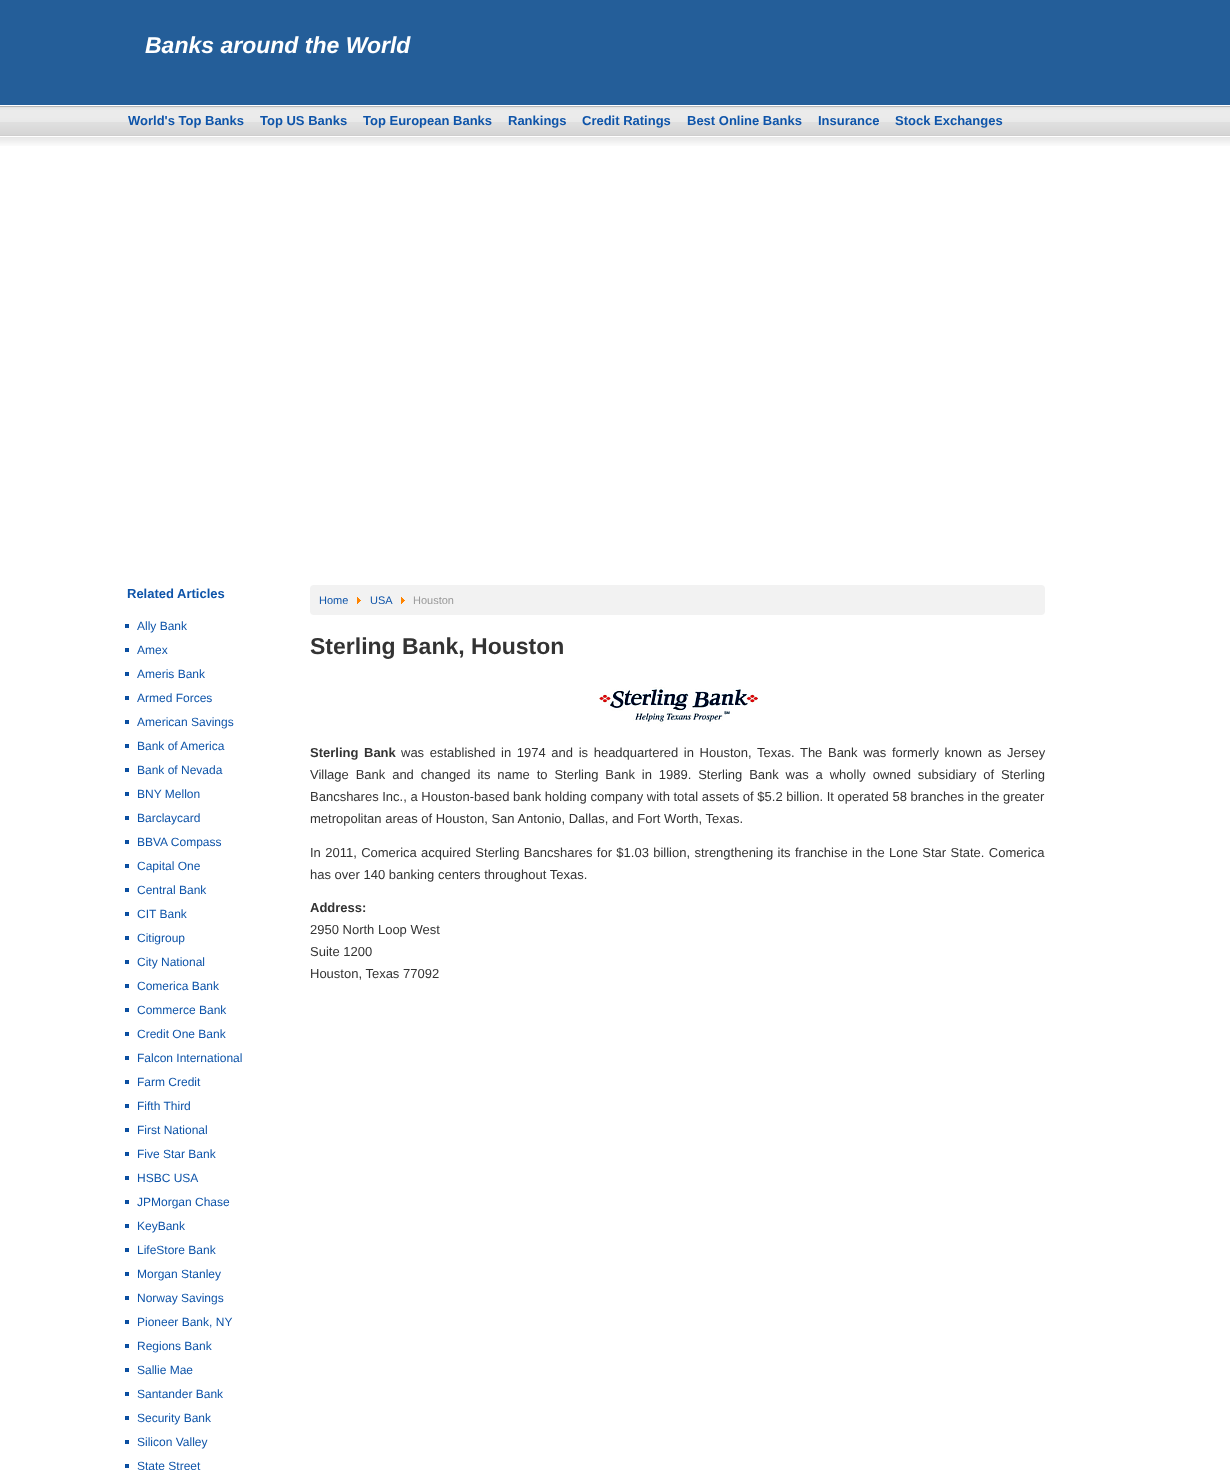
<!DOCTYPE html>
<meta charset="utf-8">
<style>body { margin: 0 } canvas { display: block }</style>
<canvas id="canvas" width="1230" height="1470"></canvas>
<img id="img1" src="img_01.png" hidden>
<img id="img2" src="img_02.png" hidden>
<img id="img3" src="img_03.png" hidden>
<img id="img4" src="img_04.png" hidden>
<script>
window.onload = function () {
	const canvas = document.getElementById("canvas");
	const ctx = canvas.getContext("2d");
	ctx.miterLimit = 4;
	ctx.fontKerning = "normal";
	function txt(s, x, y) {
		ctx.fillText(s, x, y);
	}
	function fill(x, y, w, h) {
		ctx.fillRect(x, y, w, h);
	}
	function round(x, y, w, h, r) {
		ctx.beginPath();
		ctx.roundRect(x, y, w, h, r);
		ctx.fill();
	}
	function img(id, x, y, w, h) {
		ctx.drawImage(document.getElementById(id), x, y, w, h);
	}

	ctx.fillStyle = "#FFFFFF";
	fill(0, 0, 1230, 1470);
	img("img1", 0, 0, 1230, 146);
	img("img2", 125, 624, 4, 4);
	img("img2", 125, 648, 4, 4);
	img("img2", 125, 672, 4, 4);
	img("img2", 125, 696, 4, 4);
	img("img2", 125, 720, 4, 4);
	img("img2", 125, 744, 4, 4);
	img("img2", 125, 768, 4, 4);
	img("img2", 125, 792, 4, 4);
	img("img2", 125, 816, 4, 4);
	img("img2", 125, 840, 4, 4);
	img("img2", 125, 864, 4, 4);
	img("img2", 125, 888, 4, 4);
	img("img2", 125, 912, 4, 4);
	img("img2", 125, 936, 4, 4);
	img("img2", 125, 960, 4, 4);
	img("img2", 125, 984, 4, 4);
	img("img2", 125, 1008, 4, 4);
	img("img2", 125, 1032, 4, 4);
	img("img2", 125, 1056, 4, 4);
	img("img2", 125, 1080, 4, 4);
	img("img2", 125, 1104, 4, 4);
	img("img2", 125, 1128, 4, 4);
	img("img2", 125, 1152, 4, 4);
	img("img2", 125, 1176, 4, 4);
	img("img2", 125, 1200, 4, 4);
	img("img2", 125, 1224, 4, 4);
	img("img2", 125, 1248, 4, 4);
	img("img2", 125, 1272, 4, 4);
	img("img2", 125, 1296, 4, 4);
	img("img2", 125, 1320, 4, 4);
	img("img2", 125, 1344, 4, 4);
	img("img2", 125, 1368, 4, 4);
	img("img2", 125, 1392, 4, 4);
	img("img2", 125, 1416, 4, 4);
	img("img2", 125, 1440, 4, 4);
	img("img2", 125, 1464, 4, 4);
	ctx.fillStyle = "#F2F2F2";
	round(310, 585, 735, 30, 4);
	img("img3", 357, 597, 4, 7);
	img("img3", 401, 597, 4, 7);
	img("img4", 599, 687, 159, 37);
	ctx.font = "italic bold 23px Liberation Sans";
	ctx.fillStyle = "#FFFFFF";
	txt("Banks around the World", 145, 53);
	ctx.font = "bold 13px Liberation Sans";
	ctx.fillStyle = "#0E54A9";
	txt("World's Top Banks", 128, 125);
	txt("Top US Banks", 260, 125);
	txt("Top European Banks", 363, 125);
	txt("Rankings", 508, 125);
	txt("Credit Ratings", 582, 125);
	txt("Best Online Banks", 687, 125);
	txt("Insurance", 818, 125);
	txt("Stock Exchanges", 895, 125);
	txt("Related Articles", 127, 598);
	ctx.font = "12px Liberation Sans";
	txt("Ally Bank", 137, 630);
	txt("Amex", 137, 654);
	txt("Ameris Bank", 137, 678);
	txt("Armed Forces", 137, 702);
	txt("American Savings", 137, 726);
	txt("Bank of America", 137, 750);
	txt("Bank of Nevada", 137, 774);
	txt("BNY Mellon", 137, 798);
	txt("Barclaycard", 137, 822);
	txt("BBVA Compass", 137, 846);
	txt("Capital One", 137, 870);
	txt("Central Bank", 137, 894);
	txt("CIT Bank", 137, 918);
	txt("Citigroup", 137, 942);
	txt("City National", 137, 966);
	txt("Comerica Bank", 137, 990);
	txt("Commerce Bank", 137, 1014);
	txt("Credit One Bank", 137, 1038);
	txt("Falcon International", 137, 1062);
	txt("Farm Credit", 137, 1086);
	txt("Fifth Third", 137, 1110);
	txt("First National", 137, 1134);
	txt("Five Star Bank", 137, 1158);
	txt("HSBC USA", 137, 1182);
	txt("JPMorgan Chase", 137, 1206);
	txt("KeyBank", 137, 1230);
	txt("LifeStore Bank", 137, 1254);
	txt("Morgan Stanley", 137, 1278);
	txt("Norway Savings", 137, 1302);
	txt("Pioneer Bank, NY", 137, 1326);
	txt("Regions Bank", 137, 1350);
	txt("Sallie Mae", 137, 1374);
	txt("Santander Bank", 137, 1398);
	txt("Security Bank", 137, 1422);
	txt("Silicon Valley", 137, 1446);
	txt("State Street", 137, 1470);
	ctx.font = "11px Liberation Sans";
	txt("Home", 319, 604);
	txt("USA", 370, 604);
	ctx.fillStyle = "#999999";
	txt("Houston", 413, 604);
	ctx.font = "bold 23px Liberation Sans";
	ctx.fillStyle = "#333333";
	txt("Sterling Bank, Houston", 310, 654);
	ctx.wordSpacing = "2px";
	ctx.font = "bold 13px Liberation Sans";
	txt("Sterling Bank", 310, 757);
	ctx.font = "13px Liberation Sans";
	txt("was established in 1974 and is headquartered in Houston, Texas. The Bank was formerly known as Jersey", 401, 757);
	ctx.wordSpacing = "3.25px";
	txt("Village Bank and changed its name to Sterling Bank in 1989. Sterling Bank was a wholly owned subsidiary of Sterling", 310, 779);
	ctx.wordSpacing = "0px";
	txt("Bancshares Inc., a Houston-based bank holding company with total assets of $5.2 billion. It operated 58 branches in the greater", 310, 801);
	txt("metropolitan areas of Houston, San Antonio, Dallas, and Fort Worth, Texas.", 310, 823);
	ctx.wordSpacing = "0.75px";
	txt("In 2011, Comerica acquired Sterling Bancshares for $1.03 billion, strengthening its franchise in the Lone Star State. Comerica", 310, 857);
	ctx.wordSpacing = "0px";
	txt("has over 140 banking centers throughout Texas.", 310, 879);
	ctx.font = "bold 13px Liberation Sans";
	txt("Address:", 310, 912);
	ctx.font = "13px Liberation Sans";
	txt("2950 North Loop West", 310, 934);
	txt("Suite 1200", 310, 956);
	txt("Houston, Texas 77092", 310, 978);
};
</script>
